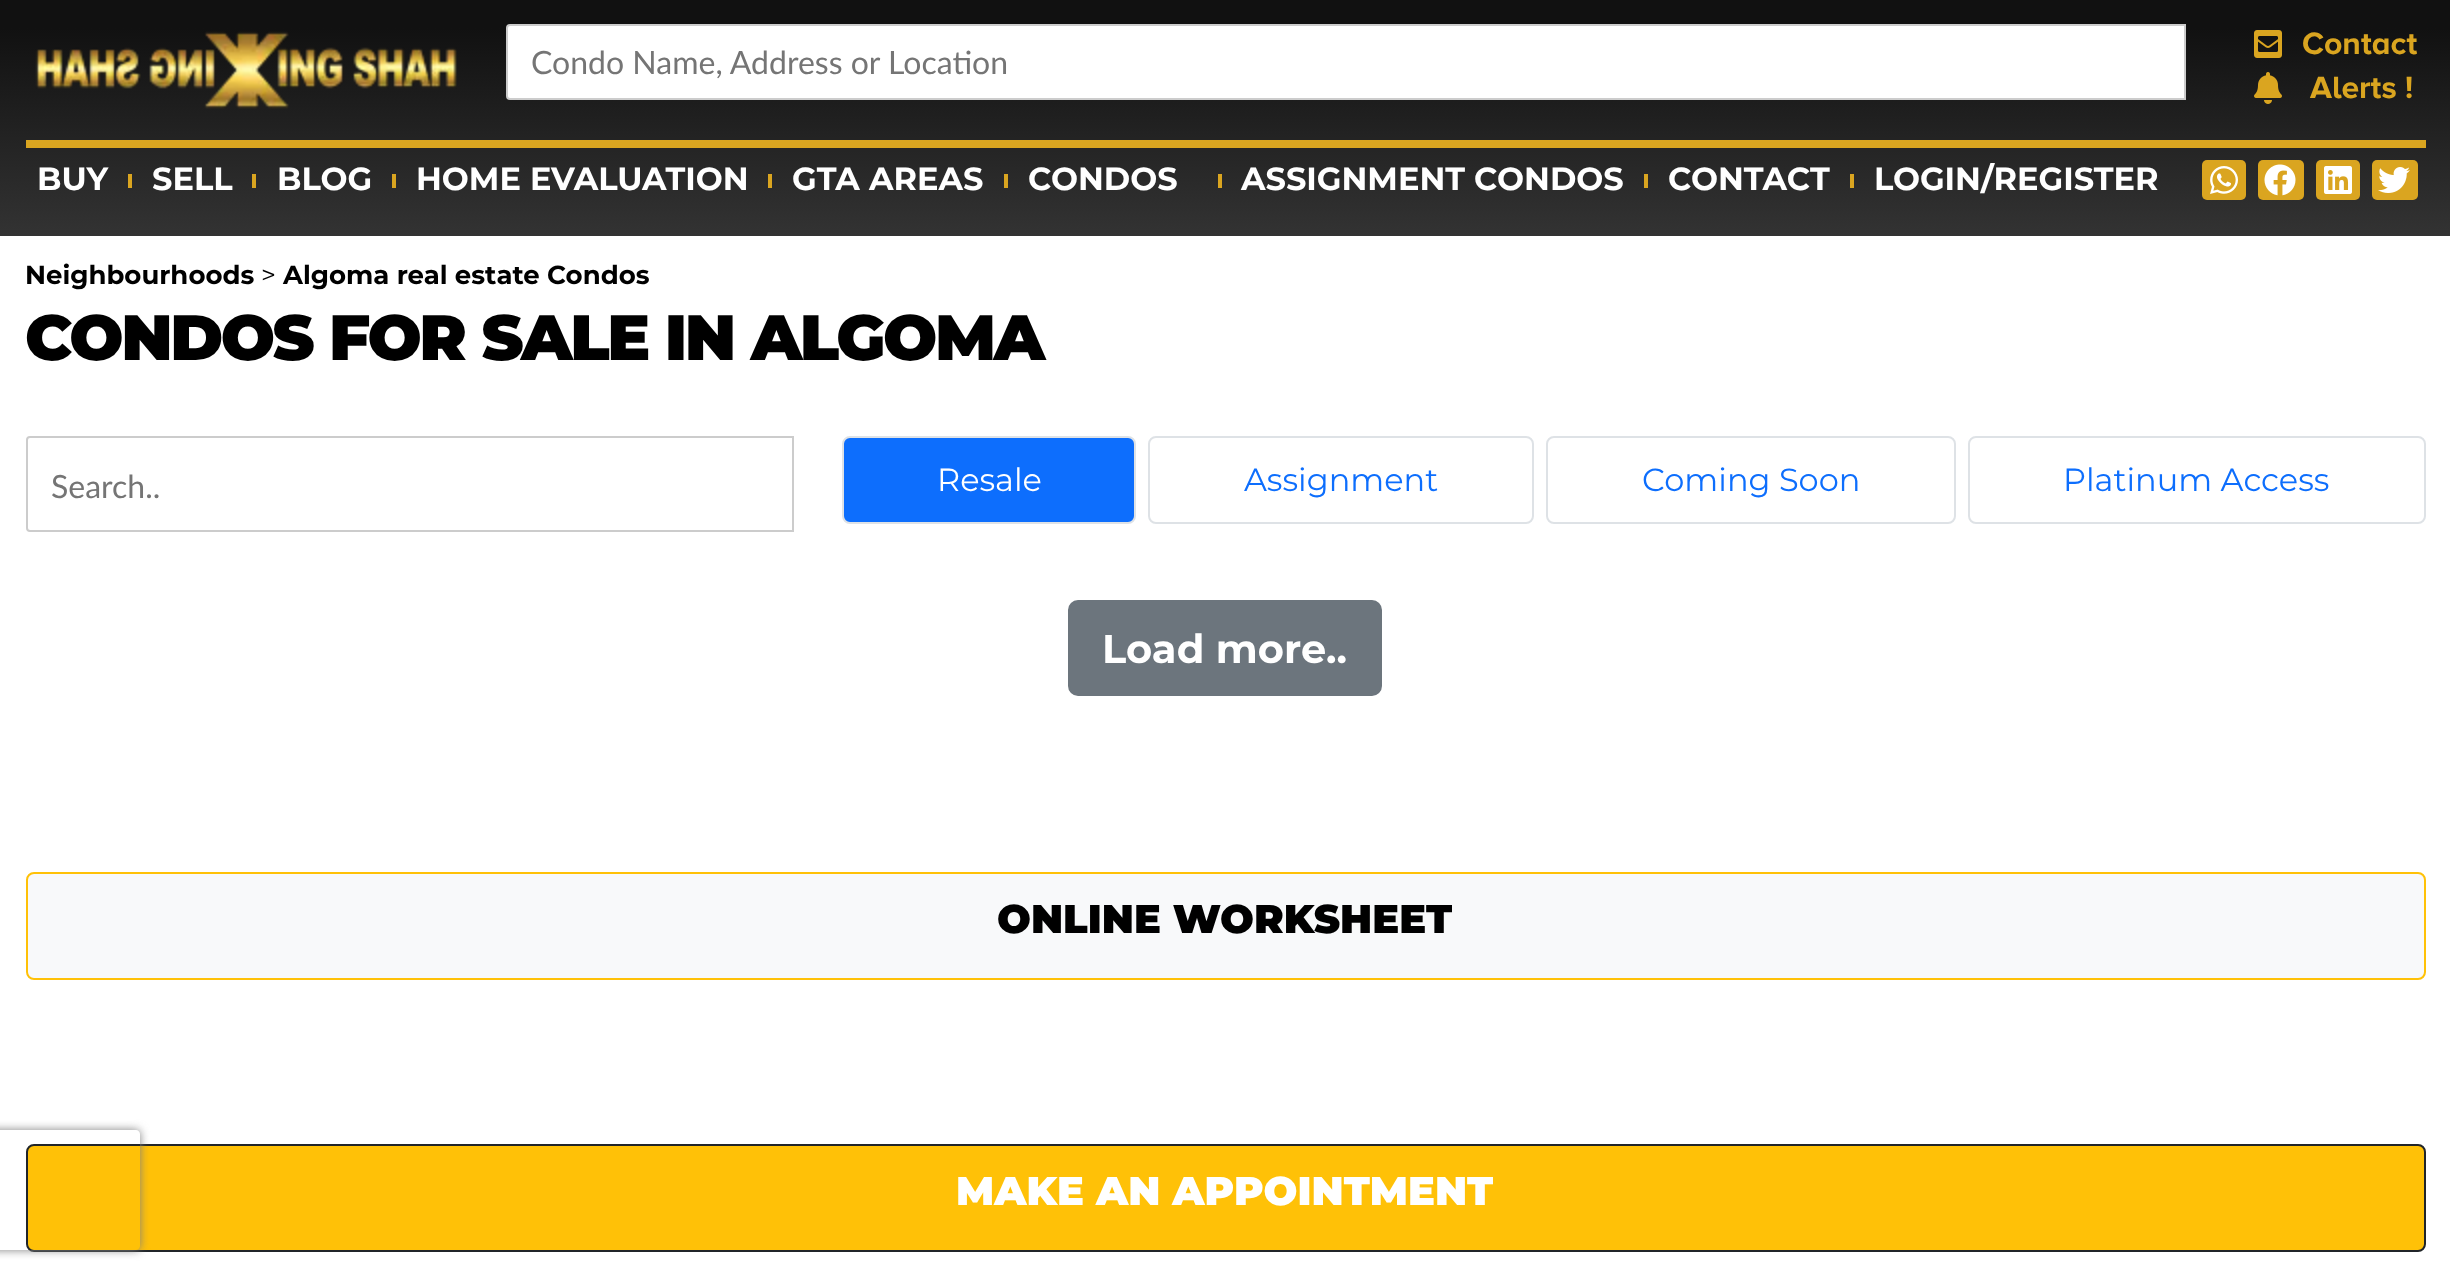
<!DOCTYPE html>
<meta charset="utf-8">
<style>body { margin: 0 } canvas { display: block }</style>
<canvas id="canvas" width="2450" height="1278"></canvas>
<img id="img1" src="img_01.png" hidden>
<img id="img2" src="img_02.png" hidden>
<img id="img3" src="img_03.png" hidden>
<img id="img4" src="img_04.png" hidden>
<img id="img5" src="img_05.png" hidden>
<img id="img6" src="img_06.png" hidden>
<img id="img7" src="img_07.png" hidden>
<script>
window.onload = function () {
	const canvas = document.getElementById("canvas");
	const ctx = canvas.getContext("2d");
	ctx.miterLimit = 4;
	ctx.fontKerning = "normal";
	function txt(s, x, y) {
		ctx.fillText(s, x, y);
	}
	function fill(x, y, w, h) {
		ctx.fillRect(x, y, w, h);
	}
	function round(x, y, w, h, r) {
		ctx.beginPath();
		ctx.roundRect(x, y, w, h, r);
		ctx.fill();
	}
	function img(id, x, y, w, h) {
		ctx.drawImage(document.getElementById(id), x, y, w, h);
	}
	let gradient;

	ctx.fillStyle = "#FFFFFF";
	fill(0, 0, 2450, 1278);
	gradient = ctx.createLinearGradient(1225, 236, 1225, 0);
	gradient.addColorStop(0, "#333333");
	gradient.addColorStop(0.88, "#111111");
	ctx.fillStyle = gradient;
	fill(0, 0, 2450, 236);
	img("img1", 35, 31, 422, 78);
	ctx.fillStyle = "#FFFFFF";
	ctx.beginPath();
	ctx.roundRect(507, 25, 1678, 74, [3, 0, 0, 3]);
	ctx.fill();
	ctx.strokeStyle = "#CCCCCC";
	ctx.lineWidth = 2;
	ctx.stroke();
	img("img2", 2254, 30, 28, 28);
	img("img3", 2254, 72, 28, 32);
	ctx.fillStyle = "#DAA520";
	fill(26, 140, 2400, 8);
	fill(128, 174, 4, 14);
	fill(252, 174, 4, 14);
	fill(392, 174, 4, 14);
	fill(768, 174, 4, 14);
	fill(1004, 174, 4, 14);
	fill(1218, 174, 4, 14);
	fill(1644, 174, 4, 14);
	fill(1850, 174, 4, 14);
	round(2202, 160, 44, 40, 5);
	img("img4", 2210, 166, 28, 28);
	round(2258, 160, 46, 40, 5);
	img("img5", 2264, 164, 32, 32);
	round(2316, 160, 44, 40, 5);
	img("img6", 2324, 166, 28, 28);
	round(2372, 160, 46, 40, 5);
	img("img7", 2378, 167, 32, 26);
	ctx.beginPath();
	ctx.roundRect(27, 437, 766, 94, [3, 0, 0, 3]);
	ctx.stroke();
	ctx.fillStyle = "#0D6EFD";
	ctx.beginPath();
	ctx.roundRect(843, 437, 292, 86, 7);
	ctx.fill();
	ctx.strokeStyle = "#DEE2E6";
	ctx.stroke();
	ctx.beginPath();
	ctx.roundRect(1149, 437, 384, 86, 7);
	ctx.stroke();
	ctx.beginPath();
	ctx.roundRect(1547, 437, 408, 86, 7);
	ctx.stroke();
	ctx.beginPath();
	ctx.roundRect(1969, 437, 456, 86, 7);
	ctx.stroke();
	ctx.fillStyle = "#6C757D";
	ctx.beginPath();
	ctx.roundRect(1069, 601, 312, 94, 9);
	ctx.fill();
	ctx.strokeStyle = "#6C757D";
	ctx.stroke();
	ctx.fillStyle = "#F8F9FA";
	ctx.beginPath();
	ctx.roundRect(27, 873, 2398, 106, 7);
	ctx.fill();
	ctx.strokeStyle = "#FFC107";
	ctx.stroke();
	ctx.fillStyle = "#FFC107";
	ctx.beginPath();
	ctx.roundRect(27, 1145, 2398, 106, 7);
	ctx.fill();
	ctx.strokeStyle = "#212529";
	ctx.stroke();
	ctx.save();
	ctx.beginPath();
	ctx.moveTo(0, 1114);
	ctx.lineTo(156, 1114);
	ctx.lineTo(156, 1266);
	ctx.lineTo(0, 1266);
	ctx.closePath();
	ctx.moveTo(-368, 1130);
	ctx.lineTo(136, 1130);
	ctx.bezierCurveTo(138, 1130, 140, 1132, 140, 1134);
	ctx.lineTo(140, 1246);
	ctx.bezierCurveTo(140, 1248, 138, 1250, 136, 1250);
	ctx.lineTo(-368, 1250);
	ctx.bezierCurveTo(-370, 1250, -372, 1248, -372, 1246);
	ctx.lineTo(-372, 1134);
	ctx.bezierCurveTo(-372, 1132, -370, 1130, -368, 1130);
	ctx.closePath();
	ctx.clip("evenodd");
	ctx.fillStyle = "#808080";
	ctx.filter = "blur(5px)";
	ctx.beginPath();
	ctx.roundRect(-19, 1130, 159, 120, 4);
	ctx.fill();
	ctx.filter = "none";
	ctx.restore();
	ctx.font = "32px Lato";
	ctx.fillStyle = "#757575";
	txt("Condo Name, Address or Location", 531, 74);
	ctx.font = "bold 32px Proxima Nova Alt";
	ctx.fillStyle = "#DAA520";
	txt("Contact", 2302, 54);
	txt("Alerts !", 2310, 98);
	ctx.font = "bold 32px Montserrat";
	ctx.fillStyle = "#FFFFFF";
	txt("BUY", 37, 190);
	txt("SELL", 152, 190);
	txt("BLOG", 277, 190);
	txt("HOME EVALUATION", 416, 190);
	txt("GTA AREAS", 792, 190);
	txt("CONDOS", 1028, 190);
	txt("ASSIGNMENT CONDOS", 1241, 190);
	txt("CONTACT", 1668, 190);
	txt("LOGIN/REGISTER", 1874, 190);
	ctx.font = "bold 26px Montserrat";
	ctx.fillStyle = "#000000";
	txt("Neighbourhoods", 25, 284);
	ctx.font = "26px Montserrat";
	txt(">", 261, 284);
	ctx.font = "bold 26px Montserrat";
	txt("Algoma real estate Condos", 283, 284);
	ctx.letterSpacing = "-2.4px";
	ctx.font = "900 64px Montserrat";
	txt("CONDOS FOR SALE IN ALGOMA", 25, 360);
	ctx.letterSpacing = "0px";
	ctx.font = "32px Lato";
	ctx.fillStyle = "#757575";
	txt("Search..", 51, 498);
	ctx.font = "32px Montserrat";
	ctx.fillStyle = "#FFFFFF";
	txt("Resale", 937, 491);
	ctx.fillStyle = "#0D6EFD";
	txt("Assignment", 1244, 491);
	txt("Coming Soon", 1642, 491);
	txt("Platinum Access", 2063, 491);
	ctx.font = "bold 40px Montserrat";
	ctx.fillStyle = "#FFFFFF";
	txt("Load more..", 1102, 663);
	ctx.font = "900 40px Montserrat";
	ctx.fillStyle = "#000000";
	txt("ONLINE WORKSHEET", 997, 933);
	ctx.fillStyle = "#FFFFFF";
	txt("MAKE AN APPOINTMENT", 956, 1205);
};
</script>
